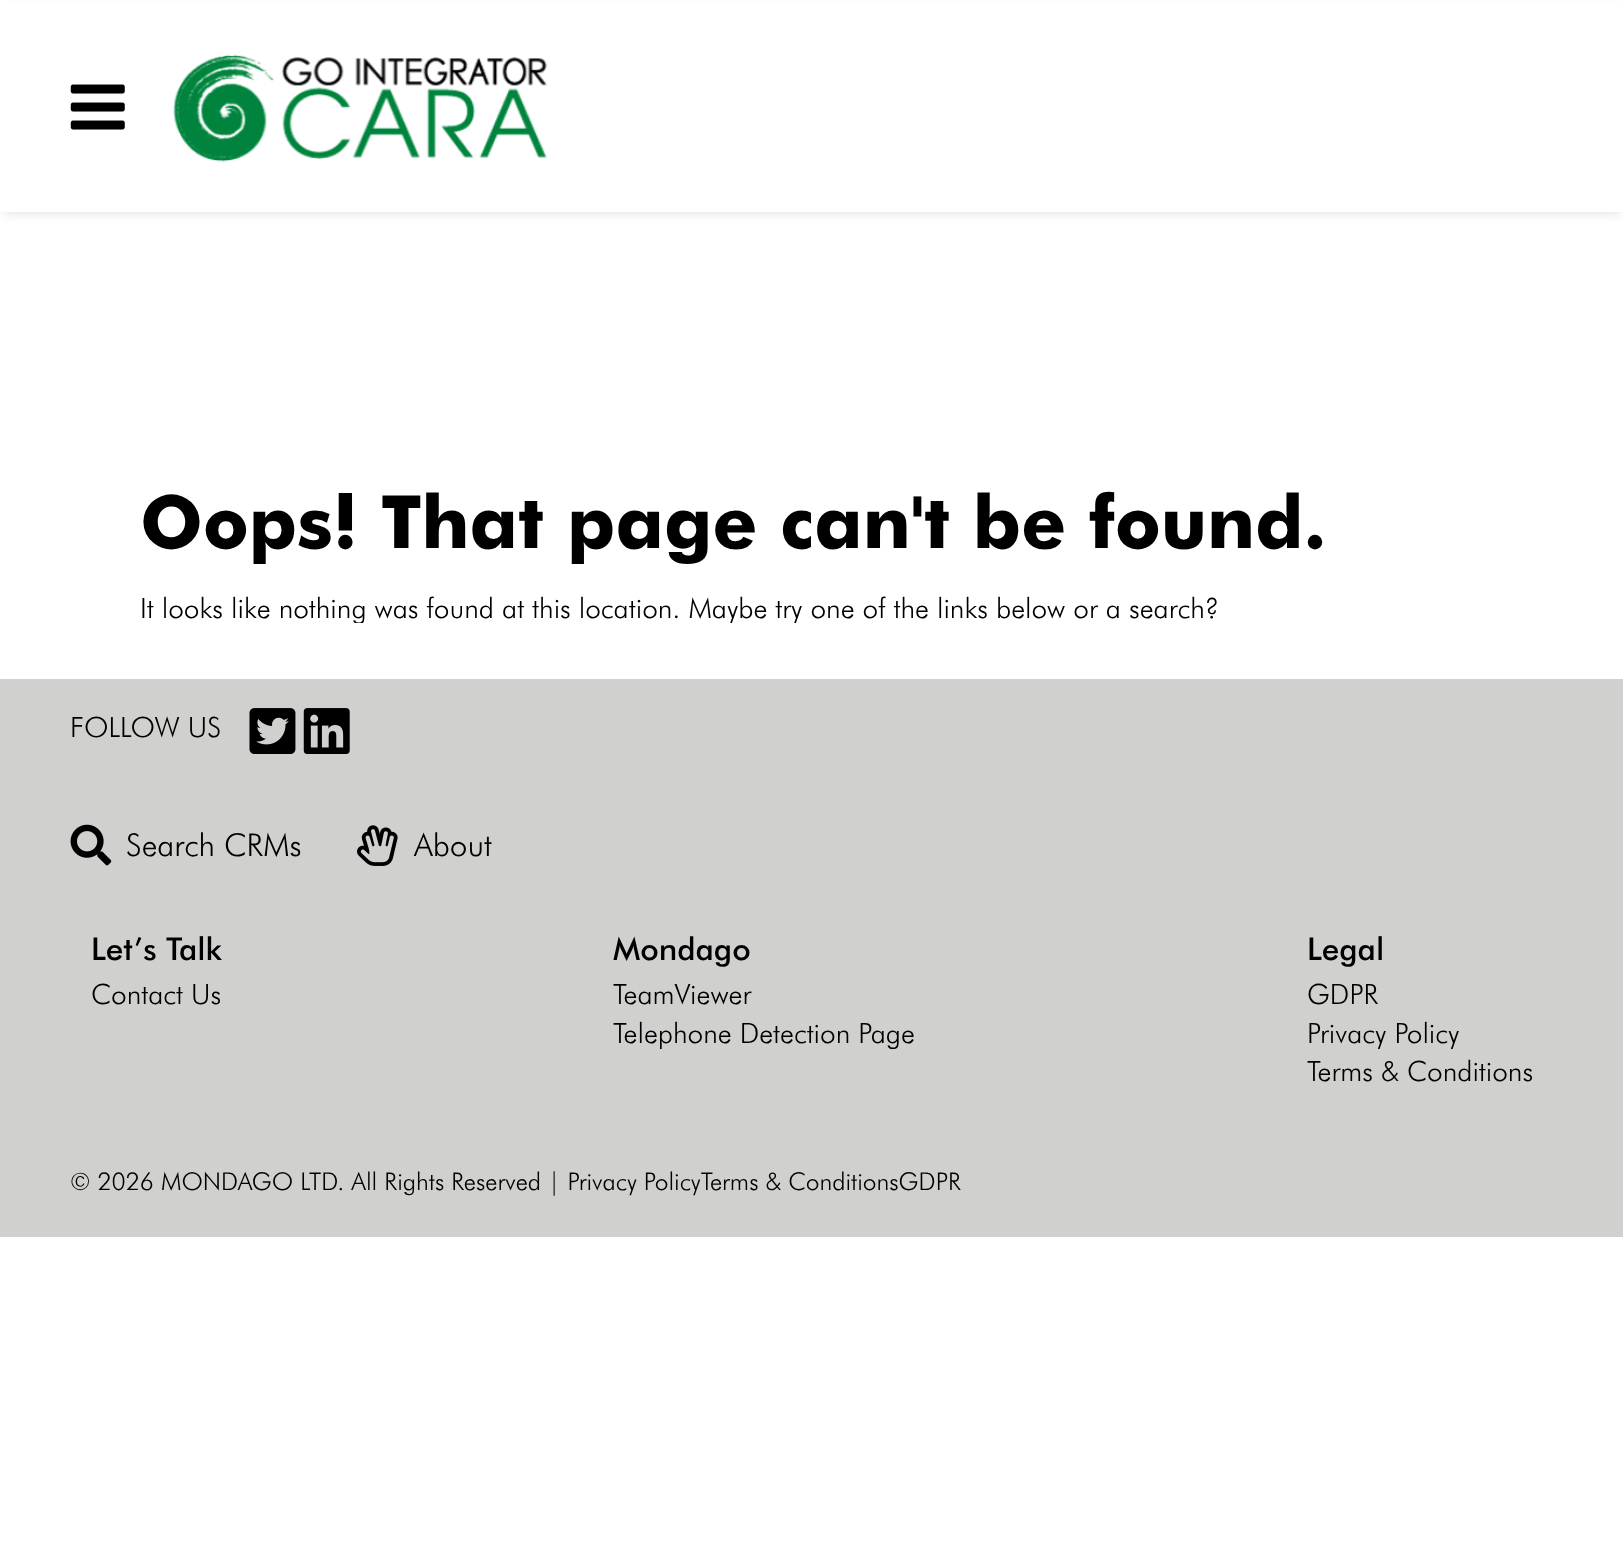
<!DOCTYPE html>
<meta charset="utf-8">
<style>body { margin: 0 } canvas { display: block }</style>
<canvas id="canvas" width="1623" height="1541"></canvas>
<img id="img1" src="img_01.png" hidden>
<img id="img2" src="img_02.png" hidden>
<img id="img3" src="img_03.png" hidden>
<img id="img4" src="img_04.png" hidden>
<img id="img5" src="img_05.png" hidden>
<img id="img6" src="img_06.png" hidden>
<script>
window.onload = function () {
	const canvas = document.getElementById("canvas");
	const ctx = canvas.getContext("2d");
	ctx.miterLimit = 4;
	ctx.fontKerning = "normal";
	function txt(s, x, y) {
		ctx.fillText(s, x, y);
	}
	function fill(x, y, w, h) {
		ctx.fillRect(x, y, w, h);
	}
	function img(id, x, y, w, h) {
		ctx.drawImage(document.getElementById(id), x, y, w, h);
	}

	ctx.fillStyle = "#FFFFFF";
	fill(0, 0, 1623, 1541);
	ctx.fillStyle = "rgba(0, 0, 0, 0.1)";
	ctx.filter = "blur(5px)";
	ctx.beginPath();
	ctx.rect(4, 9, 1617, 205);
	ctx.fill();
	ctx.filter = "none";
	ctx.fillStyle = "#FFFFFF";
	fill(0, 3, 1623, 209);
	img("img1", 70, 84, 55, 46);
	img("img2", 173, 54, 375, 109);
	ctx.fillStyle = "#D0D0CE";
	fill(0, 679, 1623, 558);
	img("img3", 249, 708, 47, 46);
	img("img4", 303, 708, 47, 46);
	img("img5", 70, 824, 42, 42);
	img("img6", 357, 825, 41, 41);
	ctx.font = "900 73.5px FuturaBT";
	ctx.fillStyle = "#000000";
	txt("Oops! That page can't be found.", 140, 548);
	ctx.save();
	ctx.beginPath();
	ctx.rect(0, 420, 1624, 203);
	ctx.clip();
	ctx.font = "300 28px FuturaBT";
	txt("It looks like nothing was found at this location. Maybe try one of the links below or a search?", 140, 618);
	ctx.restore();
	ctx.font = "300 28px FuturaBT";
	txt("FOLLOW US", 70, 737);
	ctx.font = "300 31.5px FuturaBT";
	txt("Search CRMs", 126, 856);
	txt("About", 414, 856);
	ctx.font = "500 31.5px FuturaBT";
	txt("Let’s Talk", 91, 960);
	ctx.font = "300 28px FuturaBT";
	txt("Contact Us", 91, 1004);
	ctx.font = "500 31.5px FuturaBT";
	txt("Mondago", 613, 960);
	ctx.font = "300 28px FuturaBT";
	txt("TeamViewer", 613, 1004);
	txt("Telephone Detection Page", 613, 1043);
	ctx.font = "500 31.5px FuturaBT";
	txt("Legal", 1307, 960);
	ctx.font = "300 28px FuturaBT";
	txt("GDPR", 1307, 1004);
	txt("Privacy Policy", 1307, 1043);
	txt("Terms & Conditions", 1307, 1081);
	ctx.font = "300 24.5px FuturaBT";
	txt("© 2026 MONDAGO LTD. All Rights Reserved | Privacy PolicyTerms & ConditionsGDPR", 70, 1190);
};
</script>
